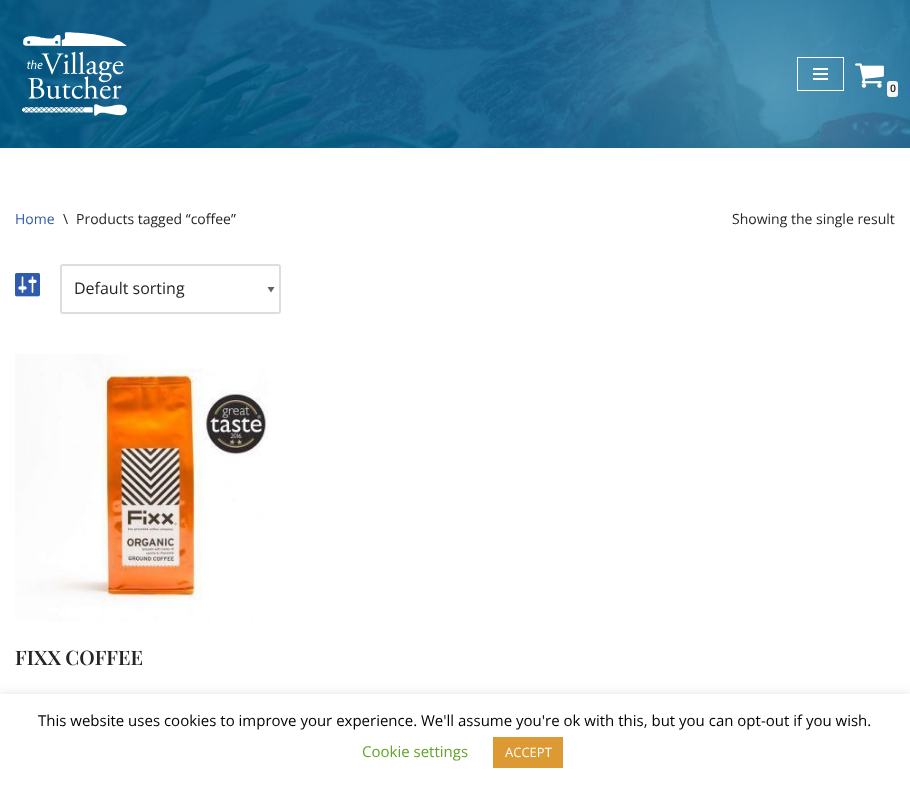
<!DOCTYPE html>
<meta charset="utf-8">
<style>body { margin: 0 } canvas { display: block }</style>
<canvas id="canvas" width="910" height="785"></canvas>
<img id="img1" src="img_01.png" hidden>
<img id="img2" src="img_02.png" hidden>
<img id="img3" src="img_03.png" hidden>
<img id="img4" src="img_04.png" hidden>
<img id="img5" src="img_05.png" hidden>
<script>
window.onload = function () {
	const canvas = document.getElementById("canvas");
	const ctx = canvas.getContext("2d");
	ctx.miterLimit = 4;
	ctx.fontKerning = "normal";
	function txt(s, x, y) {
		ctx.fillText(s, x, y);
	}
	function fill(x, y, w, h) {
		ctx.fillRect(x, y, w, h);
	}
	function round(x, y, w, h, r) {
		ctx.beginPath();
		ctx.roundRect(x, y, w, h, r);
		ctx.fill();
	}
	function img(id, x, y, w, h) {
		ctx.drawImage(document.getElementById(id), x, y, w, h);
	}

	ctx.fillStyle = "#FFFFFF";
	fill(0, 0, 910, 785);
	img("img1", 0, 0, 910, 148);
	img("img2", 22, 32, 105, 84);
	ctx.strokeStyle = "#FFFFFF";
	ctx.strokeRect(797.5, 57.5, 46, 33);
	fill(813, 68, 15, 2);
	fill(813, 73, 15, 2);
	fill(813, 78, 15, 2);
	img("img3", 855, 63, 29, 25);
	ctx.fillStyle = "#F4F5F7";
	round(887, 81, 11, 16, 3);
	img("img4", 15, 273, 25, 24);
	ctx.fillStyle = "#626262";
	ctx.beginPath();
	ctx.moveTo(274.5, 287);
	ctx.lineTo(271, 292.5);
	ctx.lineTo(267.5, 287);
	ctx.closePath();
	ctx.fill();
	ctx.beginPath();
	ctx.roundRect(61, 265, 219, 48, 2);
	ctx.strokeStyle = "#DDDDDD";
	ctx.lineWidth = 2;
	ctx.stroke();
	img("img5", 15, 354, 253, 267);
	ctx.fillStyle = "rgba(172, 171, 171, 0.3)";
	ctx.filter = "blur(5px)";
	ctx.beginPath();
	ctx.rect(0, 693, 910, 91);
	ctx.fill();
	ctx.filter = "none";
	ctx.fillStyle = "#FFFFFF";
	fill(0, 694, 910, 91);
	ctx.fillStyle = "#DD9933";
	fill(493, 737, 70, 31);
	ctx.font = "bold 10px Open Sans";
	ctx.fillStyle = "#272626";
	txt("0", 890, 92);
	ctx.font = "14px Open Sans";
	ctx.fillStyle = "#2F5AAE";
	txt("Home", 15, 224);
	ctx.fillStyle = "#272626";
	txt("\\", 63, 224);
	txt("Products tagged “coffee”", 76, 224);
	txt("Showing the single result", 732, 224);
	ctx.font = "16px Open Sans";
	txt("Default sorting", 74, 294);
	ctx.font = "600 20px Playfair Display";
	txt("FIXX COFFEE", 15, 665);
	ctx.font = "15px Open Sans";
	ctx.fillStyle = "#000000";
	txt("This website uses cookies to improve your experience. We'll assume you're ok with this, but you can opt-out if you wish.", 38, 726);
	ctx.fillStyle = "#62A329";
	txt("Cookie settings", 362, 757);
	ctx.font = "13px Open Sans";
	ctx.fillStyle = "#FFFFFF";
	txt("ACCEPT", 505, 757);
};
</script>
